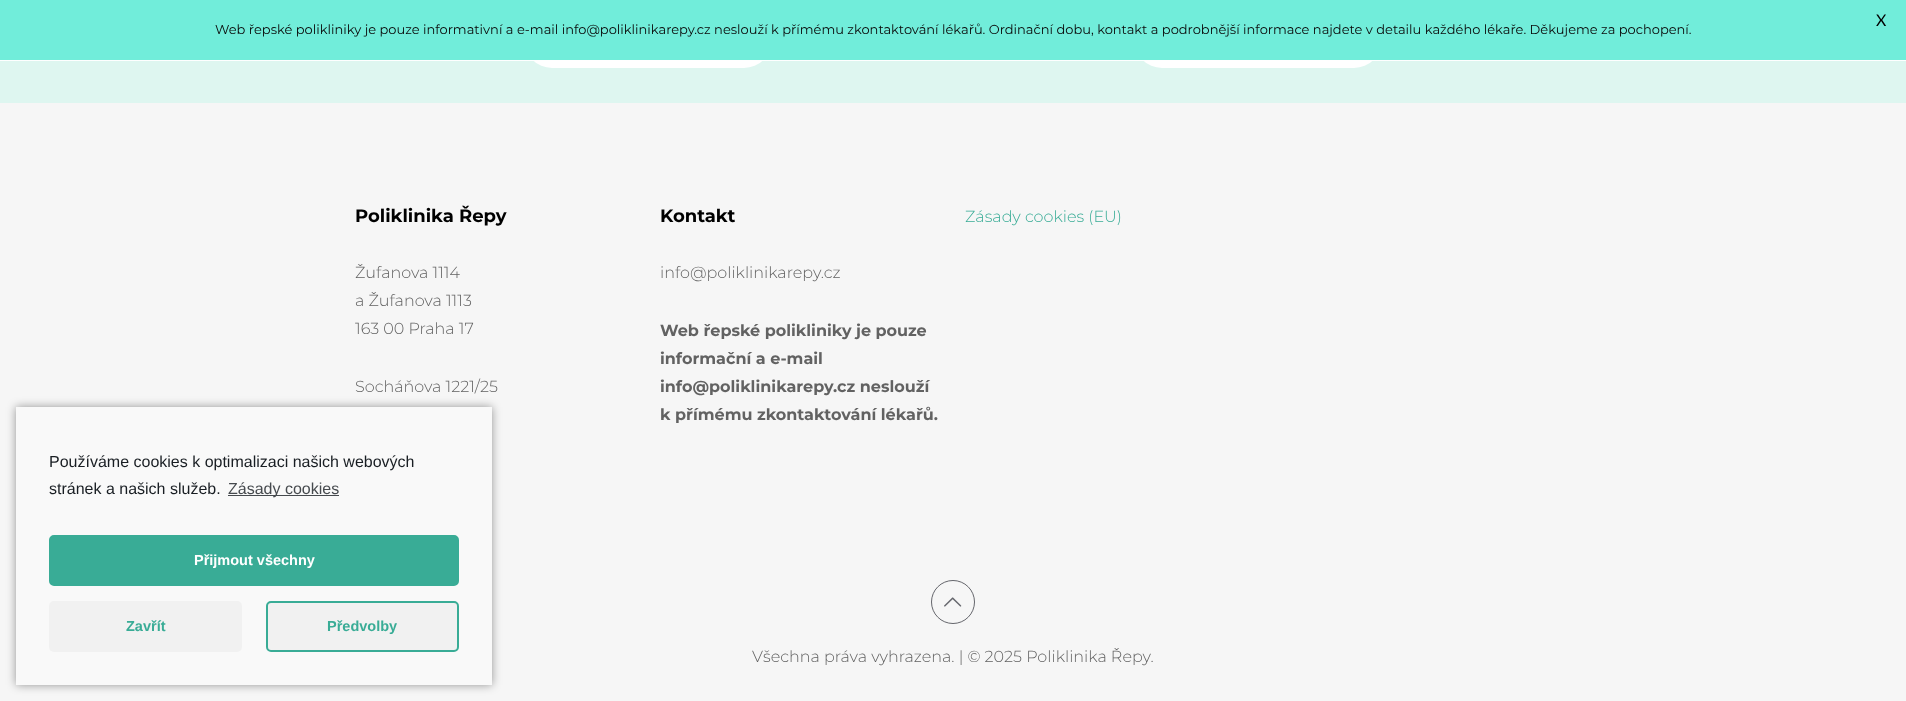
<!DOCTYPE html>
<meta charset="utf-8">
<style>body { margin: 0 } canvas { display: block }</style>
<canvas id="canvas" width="1906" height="701"></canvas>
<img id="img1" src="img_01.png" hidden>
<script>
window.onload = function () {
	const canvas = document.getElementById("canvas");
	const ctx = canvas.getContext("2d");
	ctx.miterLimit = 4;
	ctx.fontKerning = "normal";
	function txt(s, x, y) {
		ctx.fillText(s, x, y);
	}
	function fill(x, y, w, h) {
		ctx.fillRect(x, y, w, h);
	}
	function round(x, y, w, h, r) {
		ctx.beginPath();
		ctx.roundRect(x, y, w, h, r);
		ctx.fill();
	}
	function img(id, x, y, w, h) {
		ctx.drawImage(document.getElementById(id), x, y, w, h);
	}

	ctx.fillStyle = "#DEF6F0";
	fill(0, 0, 1906, 701);
	ctx.fillStyle = "#FFFFFF";
	round(524, 12, 248, 56, 28);
	round(1134, 12, 248, 56, 28);
	ctx.fillStyle = "#71EDDA";
	fill(0, 0, 1906, 60);
	ctx.fillStyle = "#F6F6F6";
	fill(0, 103, 1906, 598);
	ctx.fillStyle = "rgba(0, 0, 0, 0.4)";
	ctx.filter = "blur(5px)";
	ctx.beginPath();
	ctx.rect(16, 407, 476, 278);
	ctx.fill();
	ctx.filter = "none";
	ctx.fillStyle = "#F9F9F9";
	fill(16, 407, 476, 278);
	ctx.fillStyle = "#464A4E";
	fill(228, 495, 111, 1);
	ctx.fillStyle = "#39AC96";
	ctx.beginPath();
	ctx.roundRect(50, 536, 408, 49, 4);
	ctx.fill();
	ctx.strokeStyle = "#39AC96";
	ctx.lineWidth = 2;
	ctx.stroke();
	ctx.fillStyle = "#F1F1F1";
	round(49, 601, 193, 51, 5);
	ctx.beginPath();
	ctx.roundRect(267, 602, 191, 49, 4);
	ctx.fill();
	ctx.stroke();
	ctx.fillStyle = "rgba(255, 255, 255, 0.97)";
	fill(0, 60, 1906, 1);
	ctx.beginPath();
	ctx.arc(953, 602, 21.5, 0, Math.PI * 2);
	ctx.strokeStyle = "#65666C";
	ctx.lineWidth = 1;
	ctx.stroke();
	img("img1", 944, 597, 18, 10);
	ctx.font = "16px Lato";
	ctx.fillStyle = "#000000";
	txt("X", 1876, 26);
	ctx.font = "13px Montserrat";
	ctx.fillStyle = "#0A0A0A";
	txt("Web řepské polikliniky je pouze informativní a e-mail info@poliklinikarepy.cz neslouží k přímému zkontaktování lékařů. Ordinační dobu, kontakt a podrobnější informace najdete v detailu každého lékaře. Děkujeme za pochopení.", 215, 34);
	ctx.font = "16px Liberation Sans";
	ctx.fillStyle = "#191E23";
	txt("Používáme cookies k optimalizaci našich webových", 49, 467);
	txt("stránek a našich služeb.", 49, 494);
	ctx.fillStyle = "#464A4E";
	txt("Zásady cookies", 228, 494);
	ctx.font = "bold 14.5px Liberation Sans";
	ctx.fillStyle = "#FFFFFF";
	txt("Přijmout všechny", 194, 565);
	ctx.fillStyle = "#39AC96";
	txt("Zavřít", 126, 631);
	txt("Předvolby", 327, 631);
	ctx.font = "bold 18px Montserrat";
	ctx.fillStyle = "#000000";
	txt("Poliklinika Řepy", 355, 222);
	ctx.font = "300 16px Montserrat";
	ctx.fillStyle = "#626262";
	txt("Žufanova 1114", 355, 278);
	txt("a Žufanova 1113", 355, 306);
	txt("163 00 Praha 17", 355, 334);
	txt("Socháňova 1221/25", 355, 392);
	ctx.font = "bold 18px Montserrat";
	ctx.fillStyle = "#000000";
	txt("Kontakt", 660, 222);
	ctx.font = "300 16px Montserrat";
	ctx.fillStyle = "#626262";
	txt("info@poliklinikarepy.cz", 660, 278);
	ctx.font = "bold 16px Montserrat";
	txt("Web řepské polikliniky je pouze", 660, 336);
	txt("informační a e-mail", 660, 364);
	txt("info@poliklinikarepy.cz neslouží", 660, 392);
	txt("k přímému zkontaktování lékařů.", 660, 420);
	ctx.font = "300 16px Montserrat";
	ctx.fillStyle = "#39AC96";
	txt("Zásady cookies (EU)", 965, 222);
	ctx.fillStyle = "#626262";
	txt("Všechna práva vyhrazena. | © 2025 Poliklinika Řepy.", 752, 662);
};
</script>
